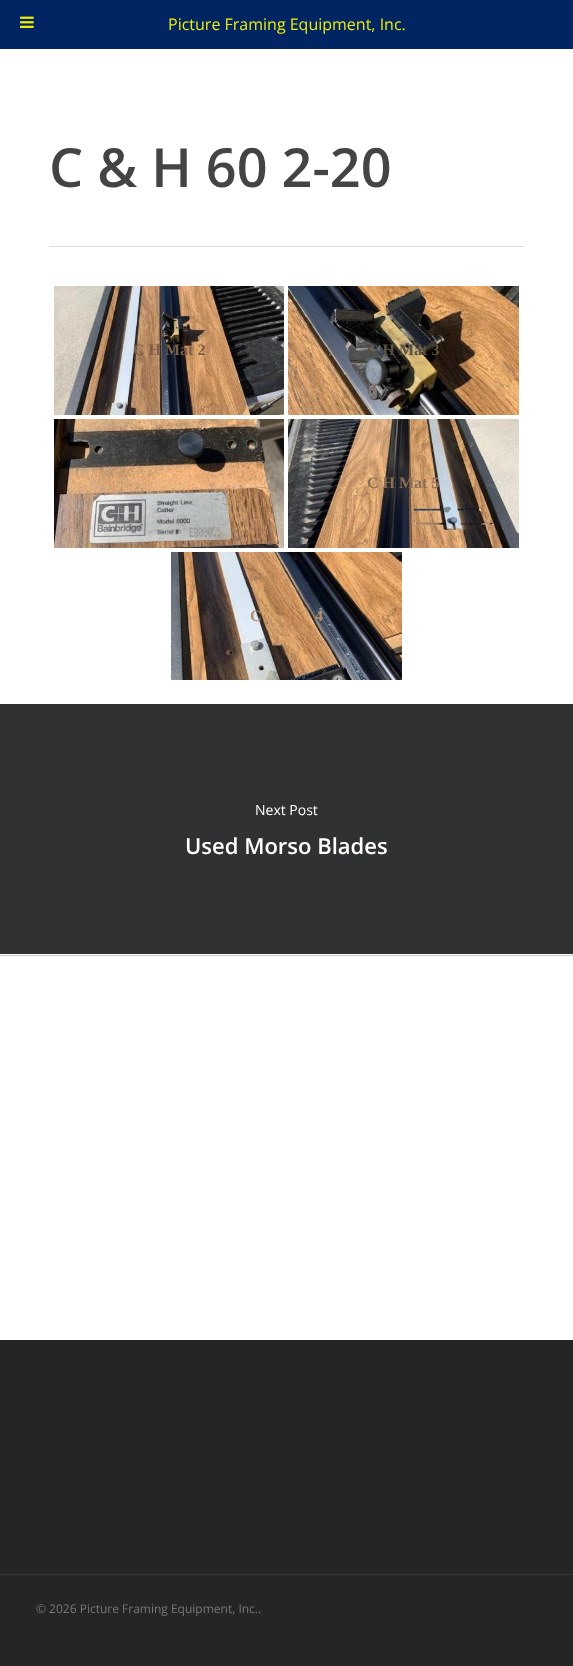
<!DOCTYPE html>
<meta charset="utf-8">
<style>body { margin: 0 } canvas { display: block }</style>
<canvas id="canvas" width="573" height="1666"></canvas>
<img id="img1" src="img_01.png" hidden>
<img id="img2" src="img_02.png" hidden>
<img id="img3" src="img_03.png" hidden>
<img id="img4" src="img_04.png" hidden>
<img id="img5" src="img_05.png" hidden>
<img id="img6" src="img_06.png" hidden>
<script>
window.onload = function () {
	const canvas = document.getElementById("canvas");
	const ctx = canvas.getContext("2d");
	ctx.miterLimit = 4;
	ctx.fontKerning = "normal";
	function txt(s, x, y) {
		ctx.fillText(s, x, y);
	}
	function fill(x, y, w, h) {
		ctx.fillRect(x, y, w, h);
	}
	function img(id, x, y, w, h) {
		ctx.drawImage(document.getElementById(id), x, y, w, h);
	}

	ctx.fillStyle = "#FFFFFF";
	fill(0, 0, 573, 1666);
	ctx.fillStyle = "#012463";
	fill(0, 0, 573, 49);
	img("img1", 20, 16, 14, 12);
	ctx.fillStyle = "#DDDDDD";
	fill(49, 246, 475, 1);
	img("img2", 54, 286, 230, 129);
	img("img3", 288, 286, 231, 129);
	img("img4", 54, 419, 230, 129);
	img("img5", 288, 419, 231, 129);
	img("img6", 171, 552, 231, 128);
	ctx.fillStyle = "#303132";
	fill(0, 704, 573, 250);
	ctx.fillStyle = "#CCCCCC";
	fill(0, 955, 573, 1);
	ctx.fillStyle = "#252525";
	fill(0, 1340, 573, 326);
	ctx.fillStyle = "#3B3B3B";
	fill(0, 1574, 573, 1);
	ctx.font = "16px Open Sans";
	ctx.fillStyle = "#EDED07";
	txt("Picture Framing Equipment, Inc.", 168, 30);
	ctx.font = "600 54px Open Sans";
	ctx.fillStyle = "#444444";
	txt("C & H 60 2-20", 49, 187);
	ctx.font = "bold 16px Liberation Serif";
	ctx.fillStyle = "#7C5F48";
	txt("C H Mat 2", 133, 355);
	ctx.fillStyle = "#5B5240";
	txt("C H Mat 3", 367, 355);
	ctx.fillStyle = "#8B6E53";
	txt("C H Mat 5", 367, 488);
	ctx.fillStyle = "#B28E6C";
	txt("C", 250, 621);
	txt("4", 315, 621);
	ctx.font = "14px Open Sans";
	ctx.fillStyle = "#FFFFFF";
	txt("Next Post", 255, 815);
	ctx.font = "600 22px Open Sans";
	txt("Used Morso Blades", 185, 854);
	ctx.font = "12px Open Sans";
	ctx.fillStyle = "#777777";
	txt("© 2026 Picture Framing Equipment, Inc..", 36, 1613);
};
</script>
